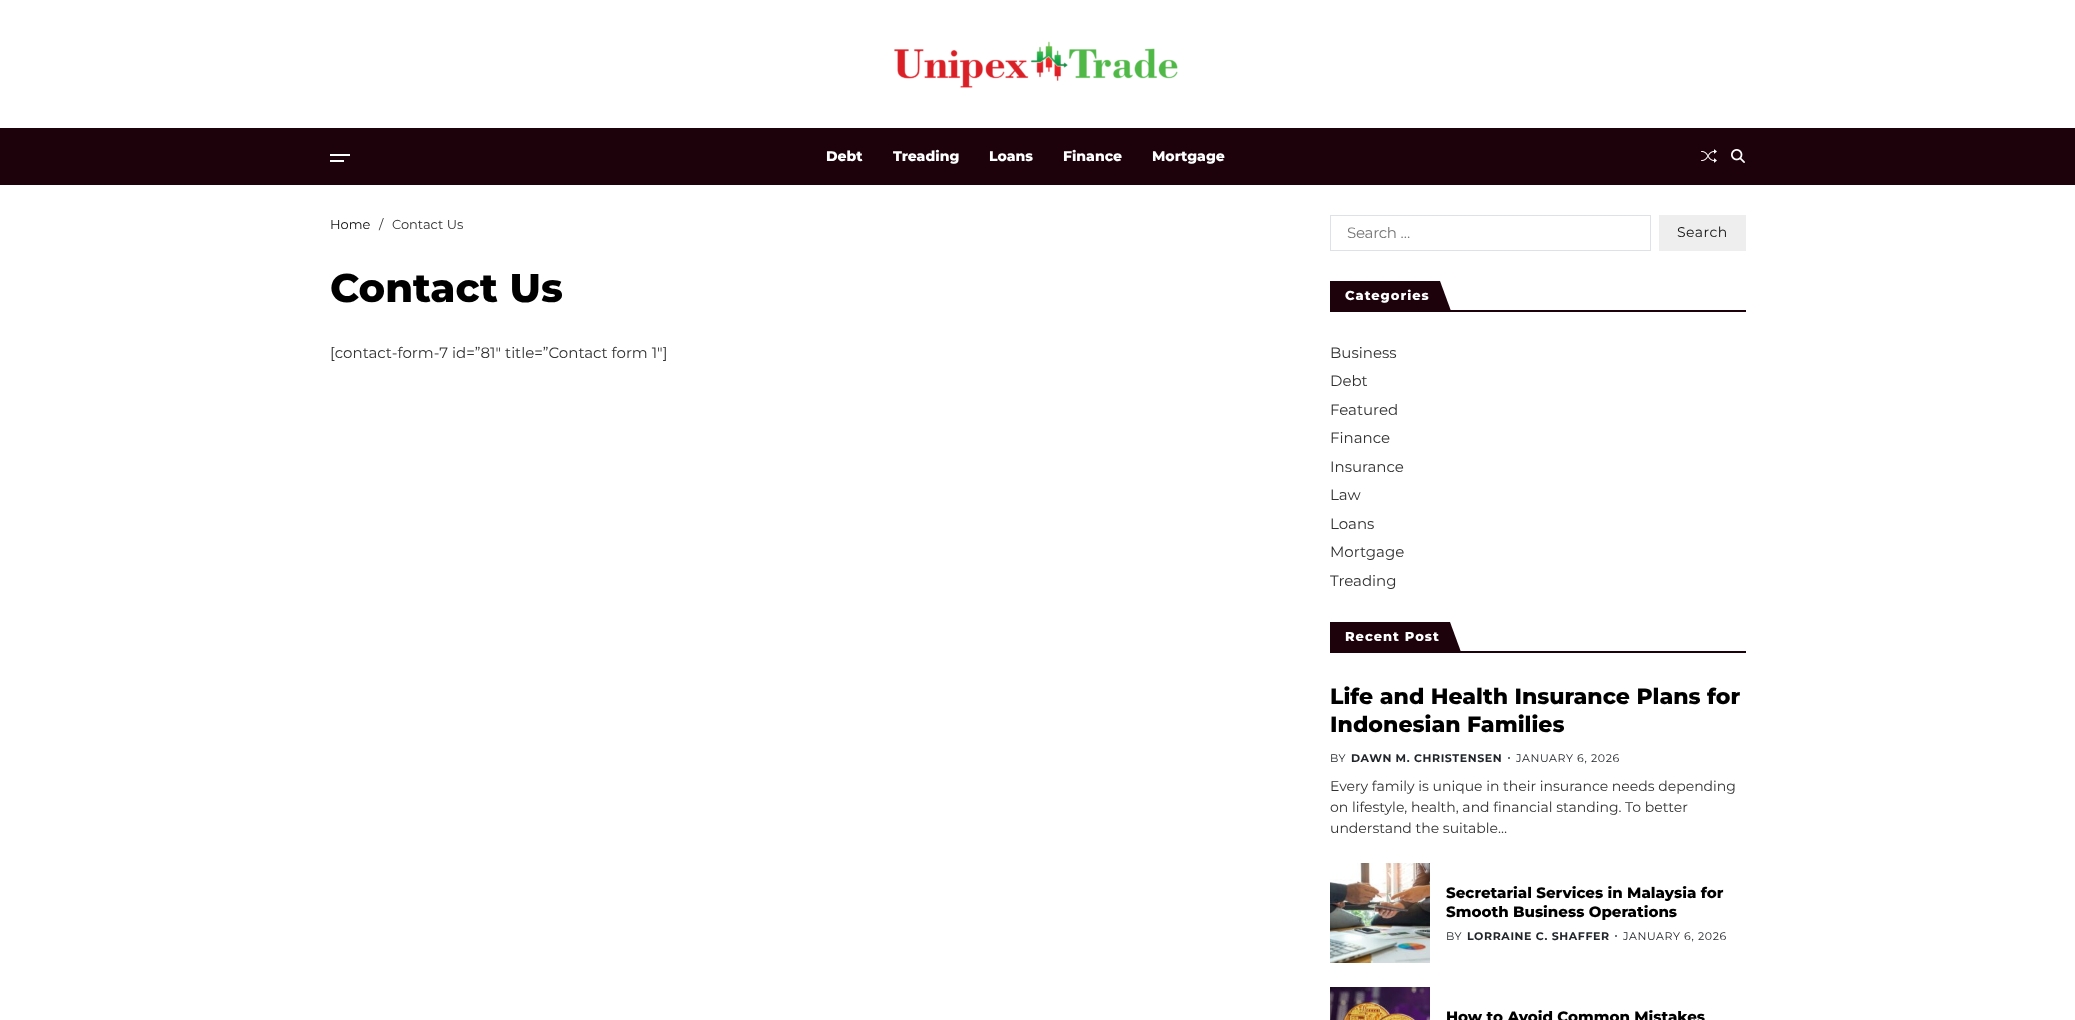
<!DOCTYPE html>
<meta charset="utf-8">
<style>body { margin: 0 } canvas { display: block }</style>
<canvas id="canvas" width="2075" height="1020"></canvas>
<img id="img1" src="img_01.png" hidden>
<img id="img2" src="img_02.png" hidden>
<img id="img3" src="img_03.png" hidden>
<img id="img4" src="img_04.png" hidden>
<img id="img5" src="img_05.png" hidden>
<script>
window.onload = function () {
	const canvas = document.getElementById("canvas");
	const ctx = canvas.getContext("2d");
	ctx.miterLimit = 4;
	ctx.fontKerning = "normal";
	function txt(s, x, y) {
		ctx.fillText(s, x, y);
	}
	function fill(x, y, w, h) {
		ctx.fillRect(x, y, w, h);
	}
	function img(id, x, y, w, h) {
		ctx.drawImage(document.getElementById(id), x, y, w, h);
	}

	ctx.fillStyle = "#FFFFFF";
	fill(0, 0, 2075, 1020);
	img("img1", 894, 41, 284, 47);
	ctx.fillStyle = "#1D020B";
	fill(0, 128, 2075, 57);
	ctx.fillStyle = "#FFFFFF";
	fill(330, 154, 20, 2);
	fill(330, 160, 14, 2);
	img("img2", 1701, 149, 16, 14);
	img("img3", 1731, 149, 14, 14);
	ctx.strokeStyle = "#DEE2E6";
	ctx.strokeRect(1330.5, 215.5, 320, 35);
	ctx.fillStyle = "#EEEEEE";
	fill(1659, 215, 87, 36);
	ctx.fillStyle = "#1D020B";
	fill(1330, 310, 416, 2);
	fill(1330, 281, 89, 29);
	ctx.beginPath();
	ctx.moveTo(1408, 281);
	ctx.lineTo(1440, 281);
	ctx.lineTo(1451, 311);
	ctx.lineTo(1419, 311);
	ctx.closePath();
	ctx.fill();
	fill(1330, 651, 416, 2);
	fill(1330, 622, 99, 29);
	ctx.beginPath();
	ctx.moveTo(1418, 622);
	ctx.lineTo(1450, 622);
	ctx.lineTo(1461, 652);
	ctx.lineTo(1429, 652);
	ctx.closePath();
	ctx.fill();
	ctx.fillStyle = "#6C757D";
	fill(1508, 757, 2, 2);
	img("img4", 1330, 863, 100, 100);
	fill(1615, 935, 2, 2);
	img("img5", 1330, 987, 100, 33);
	ctx.font = "800 14px Montserrat";
	ctx.fillStyle = "#FFFFFF";
	txt("Debt", 826, 161);
	txt("Treading", 893, 161);
	txt("Loans", 989, 161);
	txt("Finance", 1063, 161);
	txt("Mortgage", 1152, 161);
	ctx.font = "13px Montserrat";
	ctx.fillStyle = "#111111";
	txt("Home", 330, 229);
	ctx.fillStyle = "#313131";
	txt("/", 379, 229);
	txt("Contact Us", 392, 229);
	ctx.font = "800 40px Montserrat";
	ctx.fillStyle = "#000000";
	txt("Contact Us", 330, 302);
	ctx.font = "15px Montserrat";
	ctx.fillStyle = "#313131";
	txt("[contact-form-7 id=”81″ title=”Contact form 1″]", 330, 358);
	ctx.letterSpacing = "-0.25px";
	ctx.fillStyle = "#757575";
	txt("Search …", 1347, 238);
	ctx.letterSpacing = "0.5px";
	ctx.font = "14px Montserrat";
	ctx.fillStyle = "#111111";
	txt("Search", 1677, 237);
	ctx.letterSpacing = "1px";
	ctx.font = "800 13px Montserrat";
	ctx.fillStyle = "#FFFFFF";
	txt("Categories", 1345, 300);
	ctx.letterSpacing = "0px";
	ctx.font = "15px Montserrat";
	ctx.fillStyle = "#313131";
	txt("Business", 1330, 358);
	txt("Debt", 1330, 386);
	txt("Featured", 1330, 415);
	txt("Finance", 1330, 443);
	txt("Insurance", 1330, 472);
	txt("Law", 1330, 500);
	txt("Loans", 1330, 529);
	txt("Mortgage", 1330, 557);
	txt("Treading", 1330, 586);
	ctx.letterSpacing = "1px";
	ctx.font = "800 13px Montserrat";
	ctx.fillStyle = "#FFFFFF";
	txt("Recent Post", 1345, 641);
	ctx.letterSpacing = "0px";
	ctx.font = "800 22px Montserrat";
	ctx.fillStyle = "#000000";
	txt("Life and Health Insurance Plans for", 1330, 704);
	txt("Indonesian Families", 1330, 732);
	ctx.letterSpacing = "0.6px";
	ctx.font = "11px Montserrat";
	ctx.fillStyle = "#212529";
	txt("BY", 1330, 762);
	ctx.font = "bold 11px Montserrat";
	txt("DAWN M. CHRISTENSEN", 1351, 762);
	ctx.font = "11px Montserrat";
	txt("JANUARY 6, 2026", 1516, 762);
	ctx.letterSpacing = "0px";
	ctx.font = "14px Montserrat";
	ctx.fillStyle = "#313131";
	txt("Every family is unique in their insurance needs depending", 1330, 791);
	txt("on lifestyle, health, and financial standing. To better", 1330, 812);
	txt("understand the suitable…", 1330, 833);
	ctx.font = "800 15px Montserrat";
	ctx.fillStyle = "#000000";
	txt("Secretarial Services in Malaysia for", 1446, 898);
	txt("Smooth Business Operations", 1446, 917);
	ctx.letterSpacing = "0.6px";
	ctx.font = "11px Montserrat";
	ctx.fillStyle = "#212529";
	txt("BY", 1446, 940);
	ctx.font = "bold 11px Montserrat";
	txt("LORRAINE C. SHAFFER", 1467, 940);
	ctx.font = "11px Montserrat";
	txt("JANUARY 6, 2026", 1623, 940);
	ctx.letterSpacing = "0px";
	ctx.font = "800 15px Montserrat";
	ctx.fillStyle = "#000000";
	txt("How to Avoid Common Mistakes", 1446, 1022);
};
</script>
